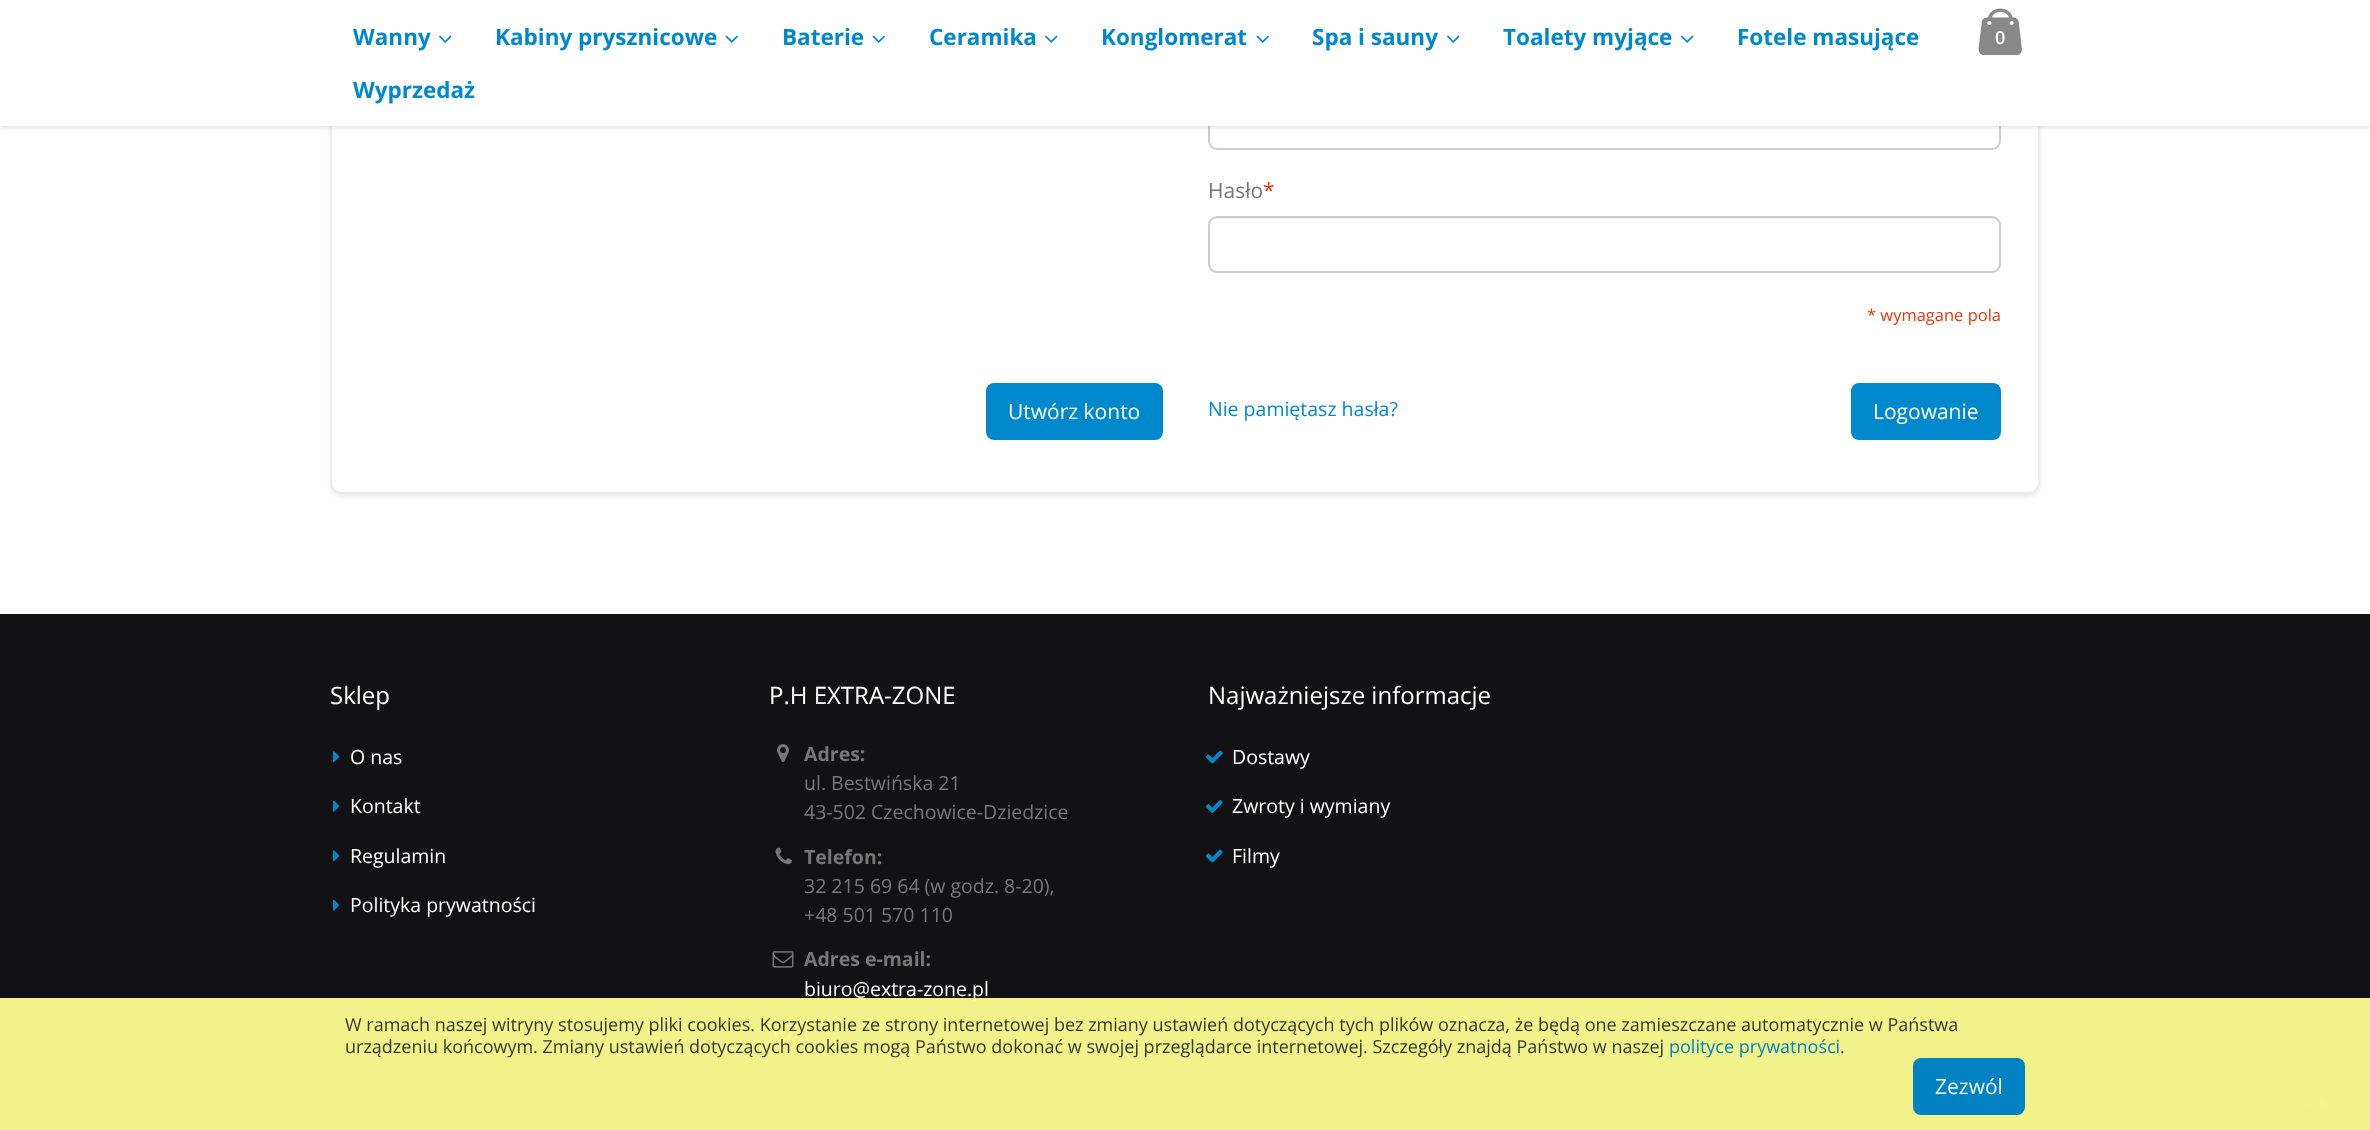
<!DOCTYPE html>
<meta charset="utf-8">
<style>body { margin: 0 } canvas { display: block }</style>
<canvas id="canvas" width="2370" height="1130"></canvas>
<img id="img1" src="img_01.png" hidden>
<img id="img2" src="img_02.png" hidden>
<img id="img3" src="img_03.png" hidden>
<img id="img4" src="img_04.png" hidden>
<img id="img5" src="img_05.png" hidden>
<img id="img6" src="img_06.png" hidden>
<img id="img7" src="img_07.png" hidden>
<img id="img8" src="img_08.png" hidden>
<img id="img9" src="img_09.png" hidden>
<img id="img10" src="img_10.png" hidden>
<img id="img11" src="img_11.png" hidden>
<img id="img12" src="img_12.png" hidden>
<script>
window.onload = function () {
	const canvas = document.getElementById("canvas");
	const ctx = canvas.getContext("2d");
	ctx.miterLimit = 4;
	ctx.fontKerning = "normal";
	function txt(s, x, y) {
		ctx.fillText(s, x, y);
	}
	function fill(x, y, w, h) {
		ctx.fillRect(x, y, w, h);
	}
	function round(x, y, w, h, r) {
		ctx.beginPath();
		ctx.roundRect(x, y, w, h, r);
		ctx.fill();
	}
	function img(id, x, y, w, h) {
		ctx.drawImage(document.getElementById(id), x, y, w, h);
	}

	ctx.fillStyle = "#FFFFFF";
	fill(0, 0, 2370, 1130);
	ctx.save();
	ctx.beginPath();
	ctx.moveTo(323, 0);
	ctx.lineTo(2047, 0);
	ctx.lineTo(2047, 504);
	ctx.lineTo(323, 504);
	ctx.closePath();
	ctx.moveTo(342, -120);
	ctx.lineTo(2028, -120);
	ctx.bezierCurveTo(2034.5, -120, 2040, -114.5, 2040, -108);
	ctx.lineTo(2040, 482);
	ctx.bezierCurveTo(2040, 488.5, 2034.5, 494, 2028, 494);
	ctx.lineTo(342, 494);
	ctx.bezierCurveTo(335.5, 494, 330, 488.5, 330, 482);
	ctx.lineTo(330, -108);
	ctx.bezierCurveTo(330, -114.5, 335.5, -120, 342, -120);
	ctx.closePath();
	ctx.clip("evenodd");
	ctx.fillStyle = "rgba(0, 0, 0, 0.08)";
	ctx.filter = "blur(2px)";
	ctx.beginPath();
	ctx.roundRect(330, -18, 1710, 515, 12);
	ctx.fill();
	ctx.filter = "none";
	ctx.restore();
	ctx.fillStyle = "#ECECEC";
	ctx.beginPath();
	ctx.moveTo(2040, 482);
	ctx.lineTo(2040, -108);
	ctx.bezierCurveTo(2040, -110, 2039, -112, 2039, -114);
	ctx.lineTo(2037, -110);
	ctx.lineTo(2038, -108);
	ctx.lineTo(2038, 482);
	ctx.bezierCurveTo(2038, 484, 2037, 487, 2035, 489);
	ctx.lineTo(2037, 490);
	ctx.bezierCurveTo(2039, 488, 2040, 485, 2040, 482);
	ctx.closePath();
	ctx.fill();
	ctx.beginPath();
	ctx.moveTo(339, 494);
	ctx.bezierCurveTo(337, 493, 335, 492, 333, 490);
	ctx.lineTo(335, 489);
	ctx.bezierCurveTo(336, 491, 339, 492, 342, 492);
	ctx.lineTo(2028, 492);
	ctx.bezierCurveTo(2031, 492, 2034, 491, 2035, 489);
	ctx.lineTo(2037, 490);
	ctx.bezierCurveTo(2035, 492, 2033, 493, 2031, 494);
	ctx.closePath();
	ctx.fill();
	ctx.beginPath();
	ctx.moveTo(330, -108);
	ctx.lineTo(330, 482);
	ctx.bezierCurveTo(330, 485, 331, 488, 333, 490);
	ctx.lineTo(335, 489);
	ctx.bezierCurveTo(333, 487, 332, 484, 332, 482);
	ctx.lineTo(332, -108);
	ctx.lineTo(333, -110);
	ctx.lineTo(331, -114);
	ctx.bezierCurveTo(331, -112, 330, -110, 330, -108);
	ctx.closePath();
	ctx.fill();
	ctx.beginPath();
	ctx.roundRect(1209, 94, 791, 55, 8);
	ctx.strokeStyle = "#CCCCCC";
	ctx.lineWidth = 2;
	ctx.stroke();
	ctx.fillStyle = "rgba(0, 0, 0, 0.1)";
	ctx.filter = "blur(1.5px)";
	ctx.beginPath();
	ctx.rect(0, 2, 2370, 126);
	ctx.fill();
	ctx.filter = "none";
	ctx.fillStyle = "#FFFFFF";
	fill(0, 0, 2370, 126);
	img("img1", 439, 35, 13, 8);
	img("img2", 725, 35, 13, 8);
	img("img2", 872, 35, 13, 8);
	img("img1", 1045, 35, 13, 8);
	img("img2", 1256, 35, 13, 8);
	img("img1", 1447, 35, 13, 8);
	img("img1", 1681, 35, 13, 8);
	img("img3", 1978, 8, 44, 48);
	ctx.fillStyle = "#0088CC";
	round(986, 383, 177, 57, 8);
	ctx.fillStyle = "#ECECEC";
	ctx.beginPath();
	ctx.moveTo(1216, 219);
	ctx.lineTo(1992, 219);
	ctx.bezierCurveTo(1996, 219, 2000, 222, 2000, 226);
	ctx.bezierCurveTo(2000, 222, 1996, 218, 1992, 218);
	ctx.lineTo(1217, 218);
	ctx.bezierCurveTo(1213, 218, 1209, 222, 1209, 226);
	ctx.bezierCurveTo(1209, 222, 1212, 219, 1216, 219);
	ctx.closePath();
	ctx.fill();
	ctx.beginPath();
	ctx.roundRect(1209, 217, 791, 55, 8);
	ctx.stroke();
	ctx.fillStyle = "#0088CC";
	round(1851, 383, 150, 57, 8);
	ctx.fillStyle = "#121214";
	fill(0, 614, 2370, 516);
	img("img4", 333, 751, 7, 12);
	img("img5", 333, 800, 7, 12);
	img("img4", 333, 850, 7, 12);
	img("img5", 333, 899, 7, 12);
	img("img6", 777, 744, 12, 19);
	img("img7", 775, 847, 17, 18);
	img("img8", 772, 951, 22, 17);
	img("img9", 774, 1023, 19, 19);
	img("img10", 1205, 750, 18, 14);
	img("img11", 1205, 800, 18, 13);
	img("img10", 1205, 849, 18, 14);
	img("img12", 2307, 1095, 21, 13);
	ctx.font = "bold 22.5px Open Sans";
	ctx.fillStyle = "#0088CC";
	txt("Wanny", 353, 45);
	txt("Kabiny prysznicowe", 495, 45);
	txt("Baterie", 782, 45);
	txt("Ceramika", 929, 45);
	txt("Konglomerat", 1101, 45);
	txt("Spa i sauny", 1312, 45);
	txt("Toalety myjące", 1503, 45);
	txt("Fotele masujące", 1737, 45);
	txt("Wyprzedaż", 353, 98);
	ctx.font = "600 18px Open Sans";
	ctx.fillStyle = "#FFFFFF";
	txt("0", 1995, 44);
	ctx.font = "21px Open Sans";
	txt("Utwórz konto", 1008, 419);
	ctx.fillStyle = "#777777";
	txt("Hasło", 1208, 198);
	ctx.fillStyle = "#EB340A";
	txt("*", 1263, 198);
	ctx.font = "16.5px Open Sans";
	txt("* wymagane pola", 1867, 321);
	ctx.font = "19.5px Open Sans";
	ctx.fillStyle = "#0088CC";
	txt("Nie pamiętasz hasła?", 1208, 416);
	ctx.font = "21px Open Sans";
	ctx.fillStyle = "#FFFFFF";
	txt("Logowanie", 1873, 419);
	ctx.font = "24px Open Sans";
	txt("Sklep", 330, 704);
	ctx.font = "19.5px Open Sans";
	txt("O nas", 350, 764);
	txt("Kontakt", 350, 813);
	txt("Regulamin", 350, 863);
	txt("Polityka prywatności", 350, 912);
	ctx.font = "24px Open Sans";
	txt("P.H EXTRA-ZONE", 769, 704);
	ctx.font = "bold 19.5px Open Sans";
	ctx.fillStyle = "#777777";
	txt("Adres:", 804, 761);
	ctx.font = "19.5px Open Sans";
	txt("ul. Bestwińska 21", 804, 790);
	txt("43-502 Czechowice-Dziedzice", 804, 819);
	ctx.font = "bold 19.5px Open Sans";
	txt("Telefon:", 804, 864);
	ctx.font = "19.5px Open Sans";
	txt("32 215 69 64 (w godz. 8-20),", 804, 893);
	txt("+48 501 570 110", 804, 922);
	ctx.font = "bold 19.5px Open Sans";
	txt("Adres e-mail:", 804, 966);
	ctx.font = "19.5px Open Sans";
	ctx.fillStyle = "#FFFFFF";
	txt("biuro@extra-zone.pl", 804, 996);
	ctx.font = "24px Open Sans";
	txt("Najważniejsze informacje", 1208, 704);
	ctx.font = "19.5px Open Sans";
	txt("Dostawy", 1232, 764);
	txt("Zwroty i wymiany", 1232, 813);
	txt("Filmy", 1232, 863);
	ctx.fillStyle = "rgba(255, 255, 144, 0.95)";
	fill(0, 998, 2370, 132);
	ctx.font = "18px Open Sans";
	ctx.fillStyle = "#393934";
	txt("W ramach naszej witryny stosujemy pliki cookies. Korzystanie ze strony internetowej bez zmiany ustawień dotyczących tych plików oznacza, że będą one zamieszczane automatycznie w Państwa", 345, 1031);
	txt("urządzeniu końcowym. Zmiany ustawień dotyczących cookies mogą Państwo dokonać w swojej przeglądarce internetowej. Szczegóły znajdą Państwo w naszej", 345, 1053);
	ctx.fillStyle = "#0182C3";
	txt("polityce prywatności", 1669, 1053);
	ctx.fillStyle = "#2E2E2E";
	txt(".", 1840, 1053);
	ctx.fillStyle = "#0182C3";
	round(1913, 1058, 112, 57, 8);
	ctx.font = "21px Open Sans";
	ctx.fillStyle = "#F3F3F3";
	txt("Zezwól", 1935, 1094);
};
</script>
